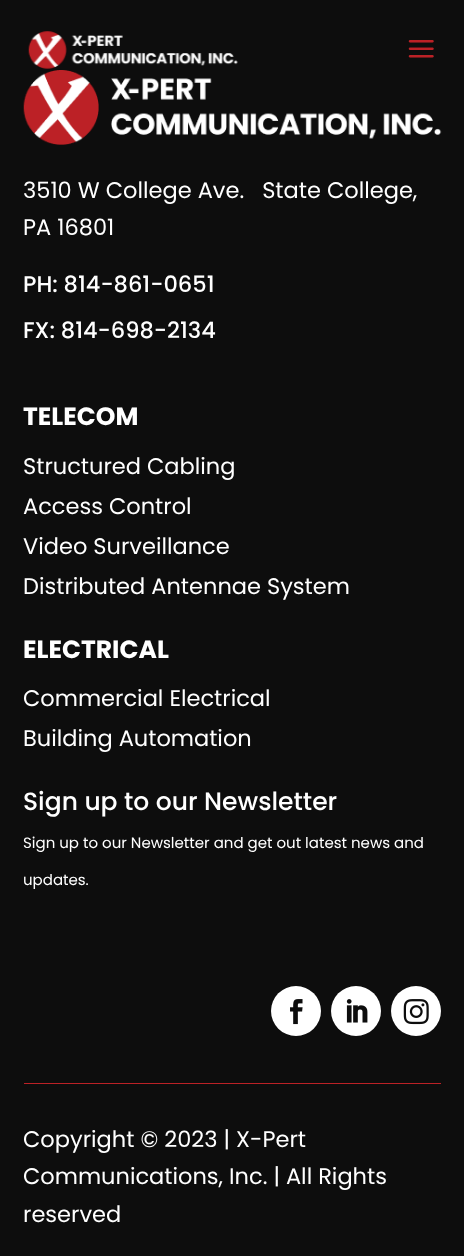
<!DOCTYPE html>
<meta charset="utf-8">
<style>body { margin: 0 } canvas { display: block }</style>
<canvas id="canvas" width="464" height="1256"></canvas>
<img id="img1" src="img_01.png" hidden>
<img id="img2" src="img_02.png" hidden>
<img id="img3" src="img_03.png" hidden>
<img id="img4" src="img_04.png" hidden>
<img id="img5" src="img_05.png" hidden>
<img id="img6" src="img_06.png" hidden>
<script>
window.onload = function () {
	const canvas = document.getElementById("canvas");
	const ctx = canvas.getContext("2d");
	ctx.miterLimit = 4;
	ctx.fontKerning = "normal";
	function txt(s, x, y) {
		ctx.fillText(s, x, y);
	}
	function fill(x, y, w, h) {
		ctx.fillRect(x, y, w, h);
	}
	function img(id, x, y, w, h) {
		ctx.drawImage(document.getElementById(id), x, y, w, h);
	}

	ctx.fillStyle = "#0D0D0D";
	fill(0, 0, 464, 1256);
	img("img1", 28, 31, 210, 38);
	img("img2", 408, 40, 26, 18);
	img("img3", 23, 70, 419, 75);
	ctx.fillStyle = "#FFFFFF";
	ctx.beginPath();
	ctx.arc(296, 1011, 25, 0, Math.PI * 2);
	ctx.fill();
	img("img4", 290, 999, 13, 26);
	ctx.beginPath();
	ctx.arc(356, 1011, 25, 0, Math.PI * 2);
	ctx.fill();
	img("img5", 346, 999, 22, 24);
	ctx.beginPath();
	ctx.arc(416, 1011, 25, 0, Math.PI * 2);
	ctx.fill();
	img("img6", 403, 999, 26, 26);
	ctx.fillStyle = "#BC2126";
	fill(24, 1083, 417, 1);
	ctx.font = "22.5px Poppins";
	ctx.fillStyle = "#FFFFFF";
	txt("3510 W College Ave.   State College,", 23, 198);
	txt("PA 16801", 23, 235);
	ctx.font = "500 22.5px Poppins";
	txt("PH: 814-861-0651", 23, 292);
	txt("FX: 814-698-2134", 23, 338);
	ctx.font = "bold 25px Poppins";
	txt("TELECOM", 23, 425);
	ctx.font = "22.5px Poppins";
	txt("Structured Cabling", 23, 474);
	txt("Access Control", 23, 514);
	txt("Video Surveillance", 23, 554);
	txt("Distributed Antennae System", 23, 594);
	ctx.font = "bold 25px Poppins";
	txt("ELECTRICAL", 23, 658);
	ctx.font = "22.5px Poppins";
	txt("Commercial Electrical", 23, 706);
	txt("Building Automation", 23, 746);
	ctx.font = "500 25px Poppins";
	txt("Sign up to our Newsletter", 23, 810);
	ctx.font = "15px Poppins";
	txt("Sign up to our Newsletter and get out latest news and", 23, 848);
	txt("updates.", 23, 885);
	ctx.font = "22.5px Poppins";
	txt("Copyright © 2023 | X-Pert", 23, 1147);
	txt("Communications, Inc. | All Rights", 23, 1184);
	txt("reserved", 23, 1222);
};
</script>
